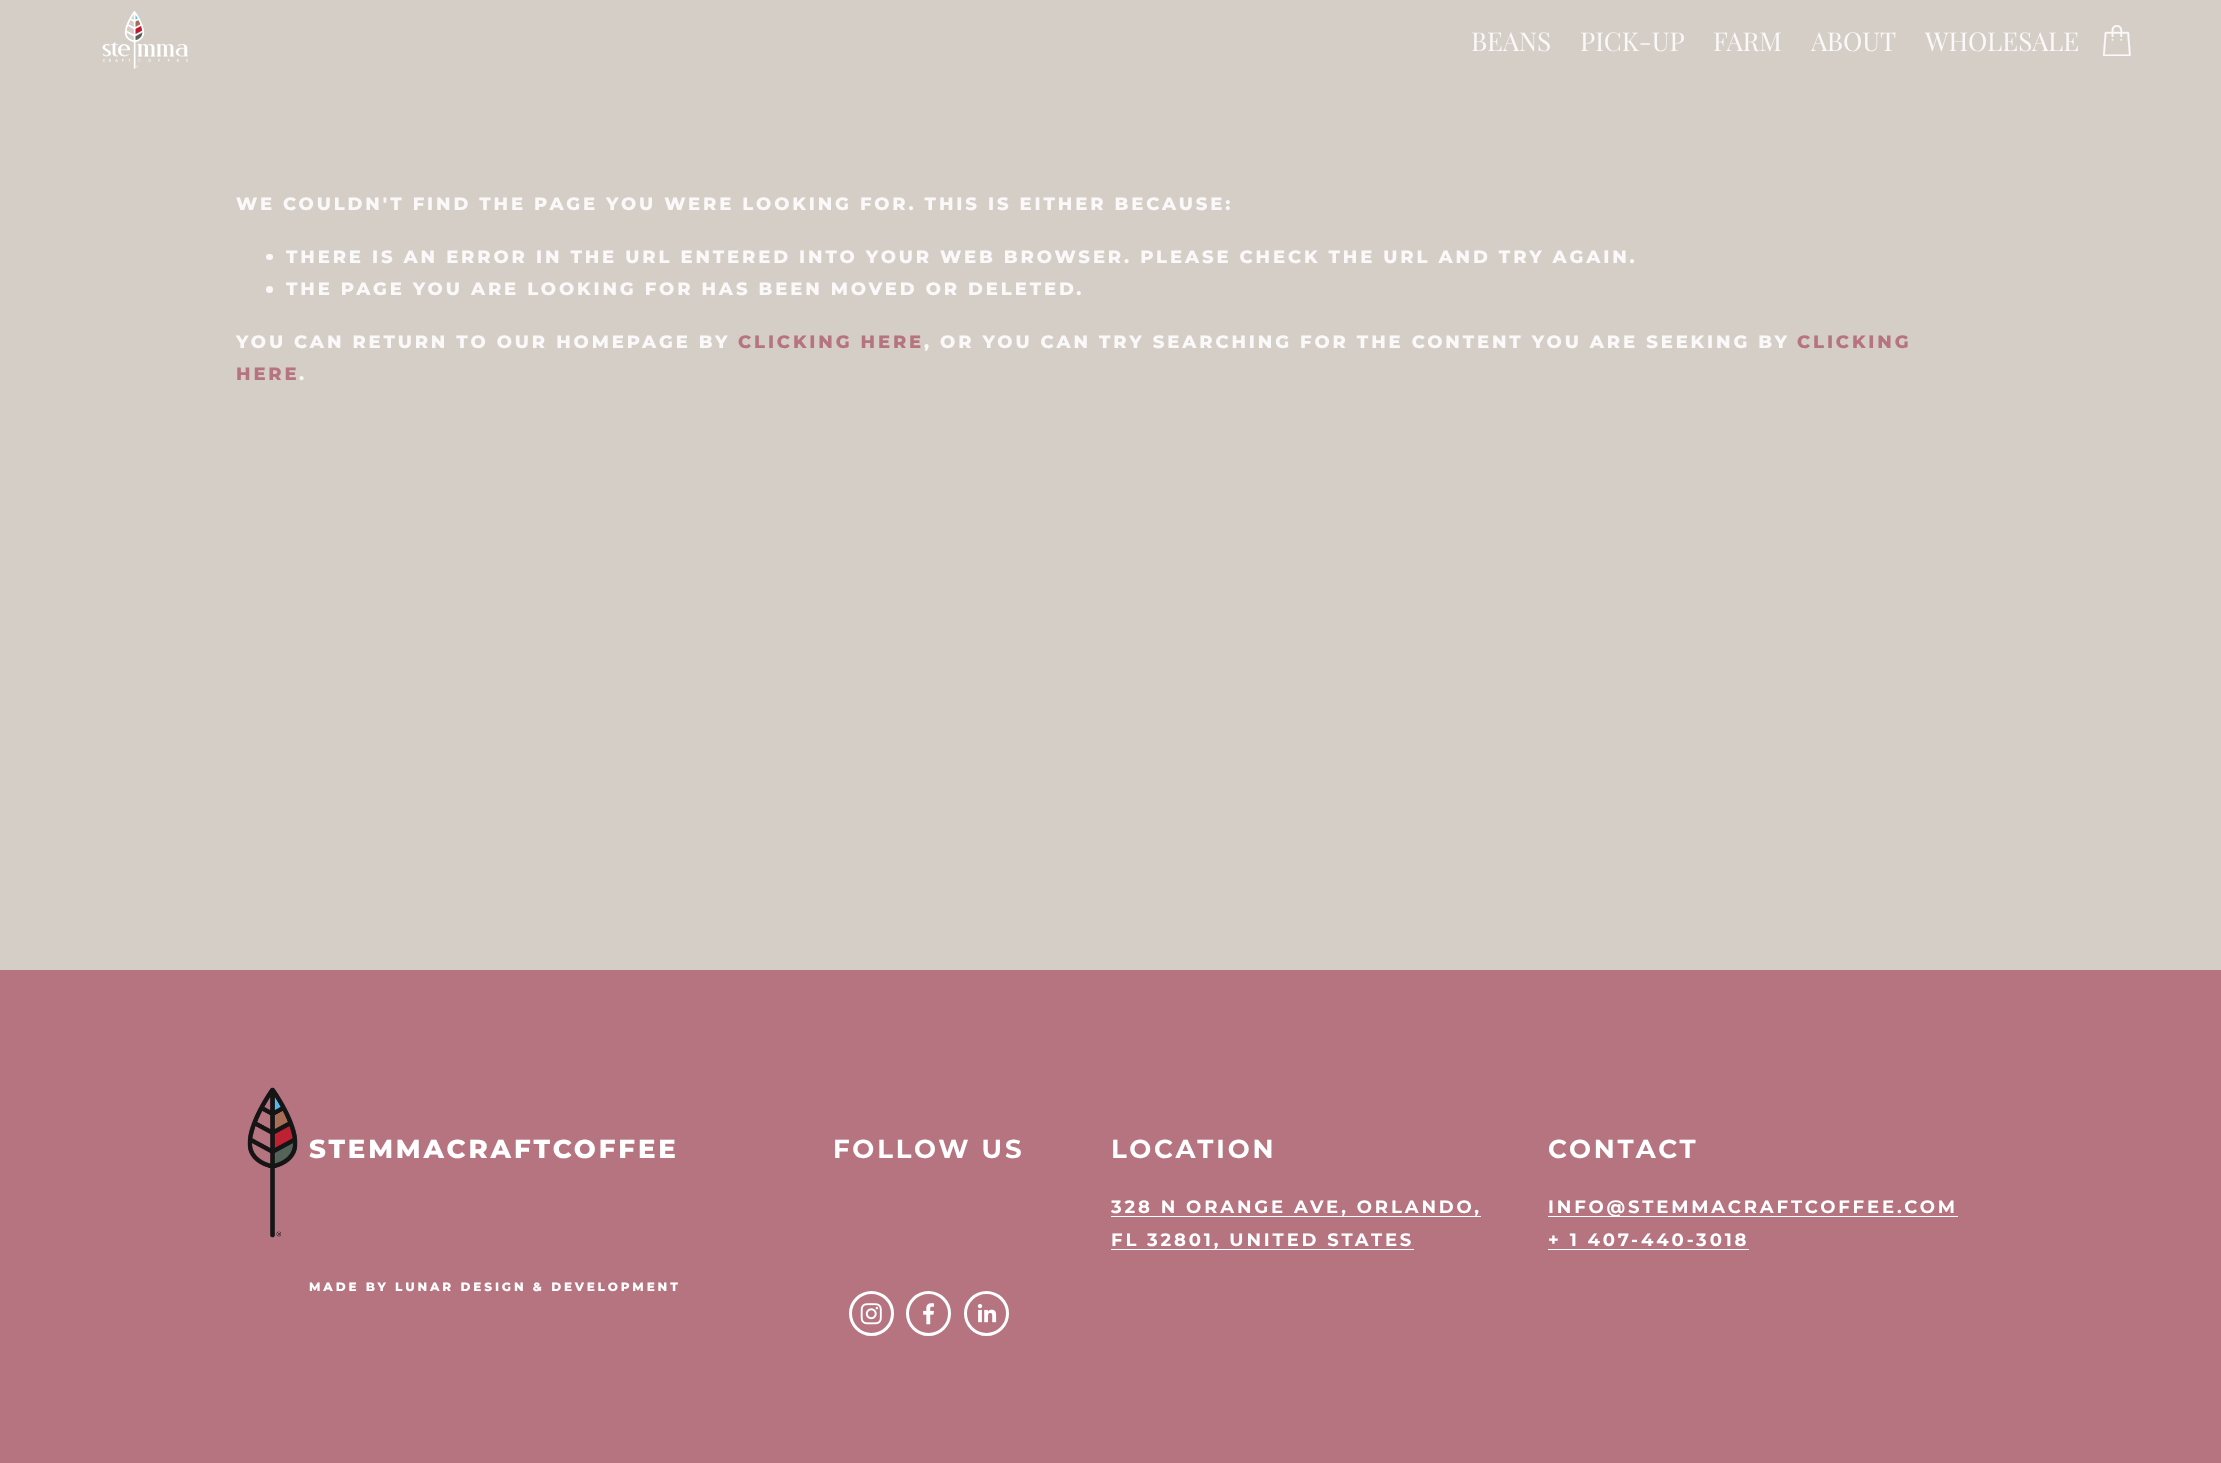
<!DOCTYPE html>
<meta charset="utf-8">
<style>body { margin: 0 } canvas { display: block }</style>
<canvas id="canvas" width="2221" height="1463"></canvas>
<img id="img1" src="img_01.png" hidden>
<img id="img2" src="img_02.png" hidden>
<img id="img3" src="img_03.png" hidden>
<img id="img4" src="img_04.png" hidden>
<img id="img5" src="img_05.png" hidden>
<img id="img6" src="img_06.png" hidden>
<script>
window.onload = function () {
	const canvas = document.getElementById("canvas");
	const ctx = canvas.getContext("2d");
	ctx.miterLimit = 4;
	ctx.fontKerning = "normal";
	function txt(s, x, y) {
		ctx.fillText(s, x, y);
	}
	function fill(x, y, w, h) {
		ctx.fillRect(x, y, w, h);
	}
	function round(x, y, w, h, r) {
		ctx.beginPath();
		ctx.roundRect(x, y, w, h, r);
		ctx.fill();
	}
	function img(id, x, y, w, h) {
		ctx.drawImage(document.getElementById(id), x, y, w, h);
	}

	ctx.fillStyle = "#D4CEC7";
	fill(0, 0, 2221, 1463);
	img("img1", 102, 11, 86, 58);
	img("img2", 2103, 25, 28, 31);
	ctx.fillStyle = "#FAF8F8";
	round(266, 254, 7, 6, 3);
	ctx.beginPath();
	ctx.arc(269.5, 289.5, 3.5, 0, Math.PI * 2);
	ctx.fill();
	ctx.fillStyle = "#B67480";
	fill(0, 970, 2221, 493);
	img("img3", 247, 1087, 51, 151);
	ctx.fillStyle = "#FFFFFF";
	fill(1111, 1216, 370, 1);
	fill(1111, 1249, 303, 1);
	fill(1548, 1216, 410, 1);
	fill(1548, 1249, 201, 1);
	ctx.beginPath();
	ctx.arc(871.5, 1313.5, 21, 0, Math.PI * 2);
	ctx.strokeStyle = "#FFFFFF";
	ctx.lineWidth = 3;
	ctx.stroke();
	img("img4", 860, 1303, 22, 22);
	ctx.beginPath();
	ctx.arc(928.5, 1313.5, 21, 0, Math.PI * 2);
	ctx.stroke();
	img("img5", 923, 1303, 11, 22);
	ctx.beginPath();
	ctx.arc(986.5, 1313.5, 21, 0, Math.PI * 2);
	ctx.stroke();
	img("img6", 977, 1304, 20, 19);
	ctx.font = "26px Playfair Display";
	ctx.fillStyle = "#FAF8F8";
	txt("BEANS", 1471, 51);
	txt("PICK-UP", 1580, 51);
	txt("FARM", 1713, 51);
	txt("ABOUT", 1811, 51);
	txt("WHOLESALE", 1925, 51);
	ctx.letterSpacing = "2.88px";
	ctx.font = "800 18px Montserrat";
	txt("WE COULDN'T FIND THE PAGE YOU WERE LOOKING FOR. THIS IS EITHER BECAUSE:", 236, 210);
	txt("THERE IS AN ERROR IN THE URL ENTERED INTO YOUR WEB BROWSER. PLEASE CHECK THE URL AND TRY AGAIN.", 286, 263);
	txt("THE PAGE YOU ARE LOOKING FOR HAS BEEN MOVED OR DELETED.", 286, 295);
	txt("YOU CAN RETURN TO OUR HOMEPAGE BY", 236, 348);
	ctx.fillStyle = "#B67480";
	txt("CLICKING HERE", 738, 348);
	ctx.fillStyle = "#FAF8F8";
	txt(", OR YOU CAN TRY SEARCHING FOR THE CONTENT YOU ARE SEEKING BY", 924, 348);
	ctx.fillStyle = "#B67480";
	txt("CLICKING", 1797, 348);
	txt("HERE", 236, 380);
	ctx.fillStyle = "#FAF8F8";
	txt(".", 299, 380);
	ctx.font = "800 26px Montserrat";
	ctx.fillStyle = "#FFFFFF";
	txt("STEMMACRAFTCOFFEE", 309, 1158);
	ctx.font = "bold 26px Montserrat";
	txt("FOLLOW US", 833, 1158);
	txt("LOCATION", 1111, 1158);
	ctx.font = "bold 18px Montserrat";
	txt("328 N ORANGE AVE, ORLANDO,", 1111, 1213);
	txt("FL 32801, UNITED STATES", 1111, 1246);
	ctx.font = "bold 26px Montserrat";
	txt("CONTACT", 1548, 1158);
	ctx.font = "bold 18px Montserrat";
	txt("INFO@STEMMACRAFTCOFFEE.COM", 1548, 1213);
	txt("+ 1 407-440-3018", 1548, 1246);
	ctx.font = "800 12px Montserrat";
	txt("MADE BY LUNAR DESIGN & DEVELOPMENT", 309, 1291);
};
</script>
